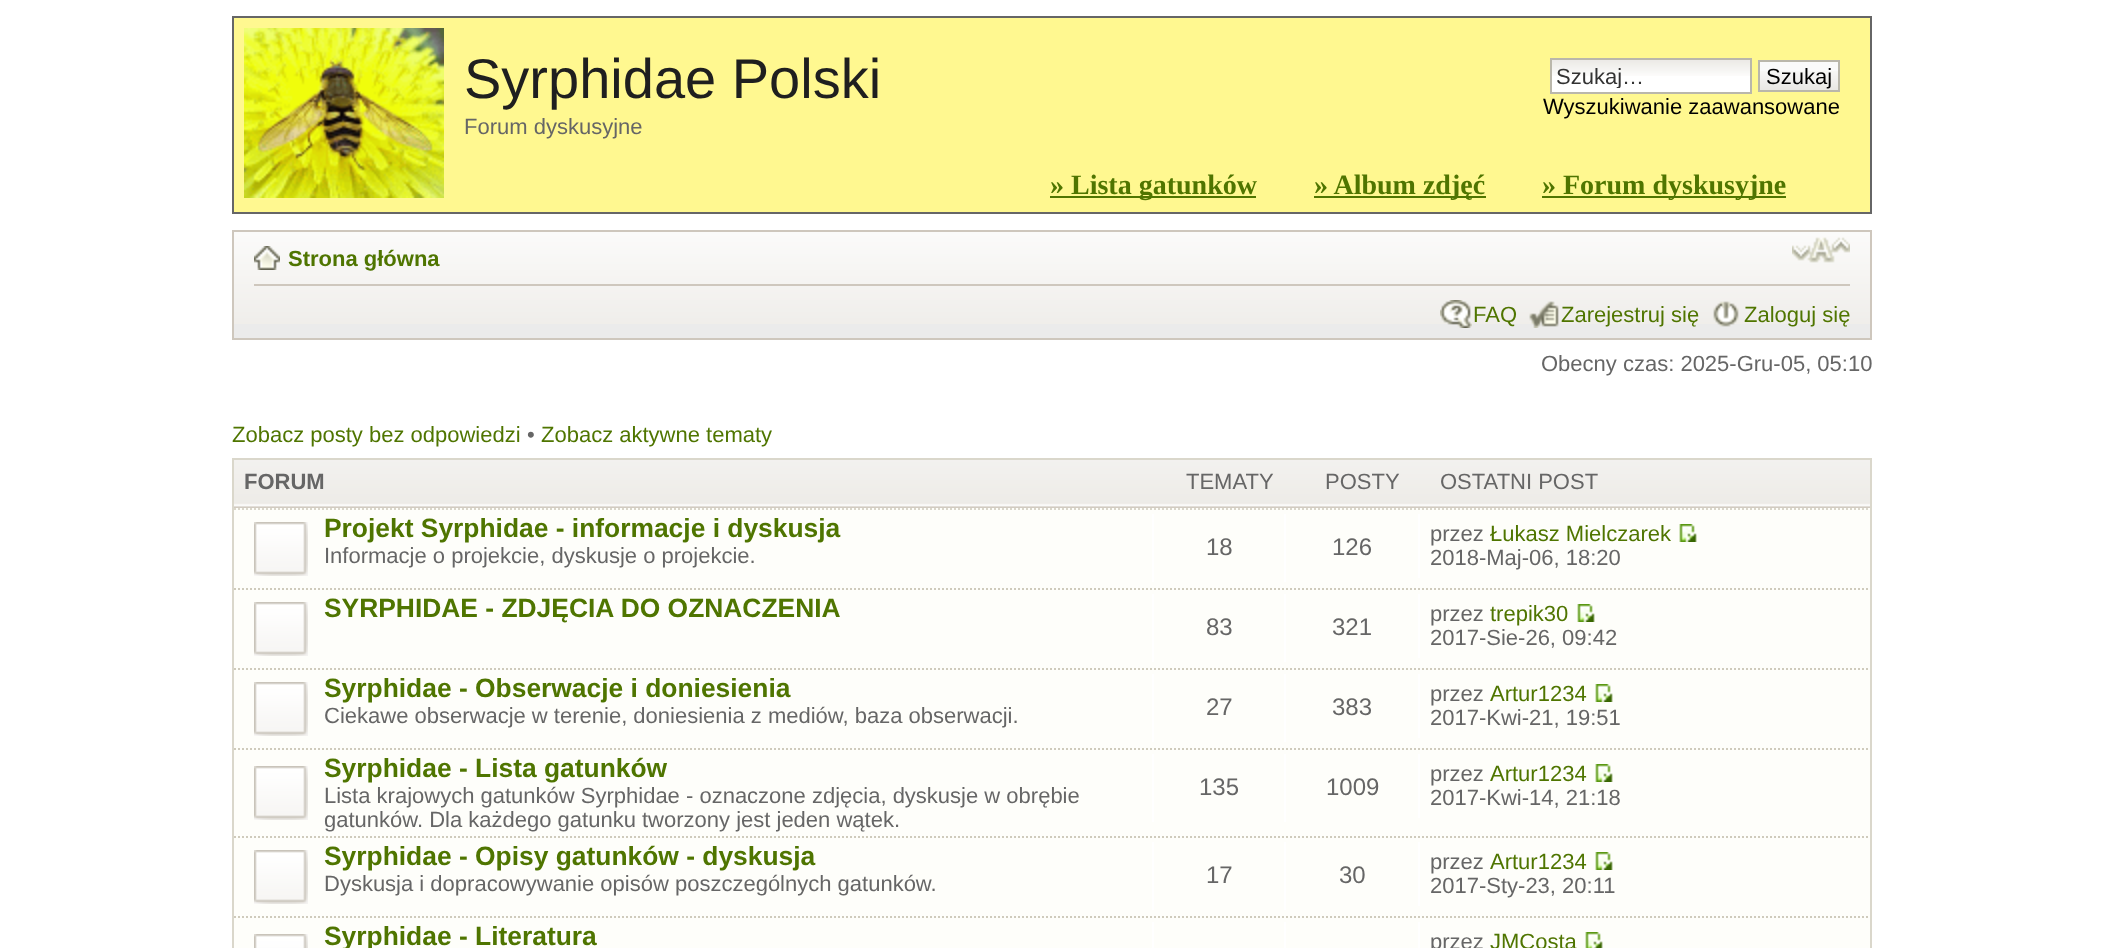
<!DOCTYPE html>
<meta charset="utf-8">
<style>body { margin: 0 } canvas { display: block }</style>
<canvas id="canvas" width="2103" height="948"></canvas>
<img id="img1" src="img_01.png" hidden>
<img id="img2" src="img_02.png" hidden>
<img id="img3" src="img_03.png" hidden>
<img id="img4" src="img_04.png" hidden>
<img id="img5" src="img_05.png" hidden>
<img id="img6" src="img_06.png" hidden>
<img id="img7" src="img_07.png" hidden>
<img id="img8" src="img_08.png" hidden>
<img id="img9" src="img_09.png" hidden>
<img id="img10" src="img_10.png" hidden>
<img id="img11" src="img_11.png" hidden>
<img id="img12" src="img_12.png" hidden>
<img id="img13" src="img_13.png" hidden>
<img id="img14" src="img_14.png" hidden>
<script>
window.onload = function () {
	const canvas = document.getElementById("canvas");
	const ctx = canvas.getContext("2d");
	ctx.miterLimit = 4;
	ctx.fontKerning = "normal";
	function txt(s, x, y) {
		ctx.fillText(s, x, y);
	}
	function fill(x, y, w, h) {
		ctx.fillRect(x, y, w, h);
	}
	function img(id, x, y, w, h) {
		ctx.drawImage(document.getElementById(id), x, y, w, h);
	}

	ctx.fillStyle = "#FFFFFF";
	fill(0, 0, 2103, 948);
	ctx.fillStyle = "#FFF890";
	ctx.beginPath();
	ctx.rect(233, 17, 1638, 196);
	ctx.fill();
	ctx.strokeStyle = "#666666";
	ctx.lineWidth = 2;
	ctx.stroke();
	img("img1", 244, 28, 200, 170);
	ctx.fillStyle = "#FFFFFF";
	fill(1552, 76, 198, 16);
	img("img2", 1552, 60, 198, 16);
	ctx.strokeStyle = "#BAB7AB";
	ctx.strokeRect(1551, 59, 200, 34);
	ctx.fillStyle = "#FAFAFA";
	fill(1760, 62, 78, 9);
	img("img3", 1760, 71, 78, 19);
	ctx.strokeRect(1759, 61, 80, 30);
	ctx.fillStyle = "#4F7500";
	fill(1050, 196, 206, 2);
	fill(1314, 196, 172, 2);
	fill(1542, 196, 244, 2);
	ctx.fillStyle = "#EBEBEB";
	fill(234, 324, 1636, 14);
	img("img4", 234, 232, 1636, 92);
	ctx.strokeStyle = "#CEC7BD";
	ctx.strokeRect(233, 231, 1638, 108);
	ctx.fillStyle = "#CEC7BD";
	fill(254, 284, 1596, 2);
	img("img5", 254, 246, 26, 24);
	img("img6", 1792, 237, 58, 26);
	img("img7", 1440, 300, 32, 28);
	img("img8", 1529, 301, 30, 27);
	img("img9", 1713, 301, 26, 26);
	ctx.strokeStyle = "#DAD7CB";
	ctx.strokeRect(233, 459, 1638, 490);
	img("img10", 234, 460, 1636, 48);
	ctx.fillStyle = "#FEFEFA";
	fill(234, 508, 1636, 440);
	ctx.beginPath();
	ctx.moveTo(234, 509);
	ctx.lineTo(1870, 509);
	ctx.setLineDash([2, 2]);
	ctx.stroke();
	ctx.beginPath();
	ctx.moveTo(234, 589);
	ctx.lineTo(1870, 589);
	ctx.strokeStyle = "#CFCBBC";
	ctx.stroke();
	img("img11", 254, 522, 54, 54);
	ctx.fillStyle = "#FFFFFF";
	fill(1152, 514, 2, 68);
	fill(1284, 514, 2, 68);
	fill(1418, 514, 2, 64);
	img("img12", 1679, 524, 18, 18);
	ctx.beginPath();
	ctx.moveTo(234, 669);
	ctx.lineTo(1870, 669);
	ctx.stroke();
	img("img11", 254, 602, 54, 54);
	fill(1152, 594, 2, 68);
	fill(1284, 594, 2, 68);
	fill(1418, 594, 2, 64);
	img("img12", 1577, 604, 18, 18);
	ctx.beginPath();
	ctx.moveTo(234, 749);
	ctx.lineTo(1870, 749);
	ctx.stroke();
	img("img11", 254, 682, 54, 54);
	fill(1152, 674, 2, 68);
	fill(1284, 674, 2, 68);
	fill(1418, 674, 2, 64);
	img("img12", 1595, 684, 18, 18);
	ctx.beginPath();
	ctx.moveTo(234, 837);
	ctx.lineTo(1870, 837);
	ctx.stroke();
	img("img11", 254, 766, 54, 54);
	fill(1152, 754, 2, 68);
	fill(1284, 754, 2, 68);
	fill(1418, 754, 2, 64);
	img("img12", 1595, 764, 18, 18);
	ctx.beginPath();
	ctx.moveTo(234, 917);
	ctx.lineTo(1870, 917);
	ctx.stroke();
	img("img11", 254, 850, 54, 54);
	fill(1152, 842, 2, 68);
	fill(1284, 842, 2, 68);
	fill(1418, 842, 2, 64);
	img("img12", 1595, 852, 18, 18);
	img("img13", 254, 934, 54, 14);
	fill(1152, 922, 2, 26);
	fill(1284, 922, 2, 26);
	fill(1418, 922, 2, 26);
	img("img14", 1585, 932, 18, 16);
	ctx.font = "56px Liberation Sans";
	ctx.fillStyle = "#1F1F1F";
	txt("Syrphidae Polski", 464, 98);
	ctx.font = "22px Liberation Sans";
	ctx.fillStyle = "#666666";
	txt("Forum dyskusyjne", 464, 134);
	ctx.save();
	ctx.beginPath();
	ctx.rect(1556, 64, 190, 24);
	ctx.clip();
	ctx.fillStyle = "#333333";
	txt("Szukaj…", 1556, 84);
	ctx.restore();
	ctx.fillStyle = "#000000";
	txt("Szukaj", 1766, 84);
	txt("Wyszukiwanie zaawansowane", 1543, 114);
	ctx.font = "bold 28px Liberation Serif";
	ctx.fillStyle = "#4F7500";
	txt("» Lista gatunków", 1050, 194);
	txt("» Album zdjęć", 1314, 194);
	txt("» Forum dyskusyjne", 1542, 194);
	ctx.font = "bold 22px Liberation Sans";
	txt("Strona główna", 288, 266);
	ctx.font = "22px Liberation Sans";
	txt("FAQ", 1473, 322);
	txt("Zarejestruj się", 1561, 322);
	txt("Zaloguj się", 1744, 322);
	ctx.fillStyle = "#666666";
	txt("Obecny czas: 2025-Gru-05, 05:10", 1541, 371);
	ctx.fillStyle = "#4F7500";
	txt("Zobacz posty bez odpowiedzi", 232, 442);
	ctx.fillStyle = "#666666";
	txt("•", 527, 442);
	ctx.fillStyle = "#4F7500";
	txt("Zobacz aktywne tematy", 541, 442);
	ctx.font = "bold 22px Liberation Sans";
	ctx.fillStyle = "#666666";
	txt("FORUM", 244, 489);
	ctx.font = "22px Liberation Sans";
	txt("TEMATY", 1186, 489);
	txt("POSTY", 1325, 489);
	txt("OSTATNI POST", 1440, 489);
	ctx.font = "bold 26.4px Liberation Sans";
	ctx.fillStyle = "#4F7500";
	txt("Projekt Syrphidae - informacje i dyskusja", 324, 537);
	ctx.font = "22px Liberation Sans";
	ctx.fillStyle = "#666666";
	txt("Informacje o projekcie, dyskusje o projekcie.", 324, 563);
	ctx.font = "24px Liberation Sans";
	txt("18", 1206, 555);
	txt("126", 1332, 555);
	ctx.font = "22px Liberation Sans";
	txt("przez", 1430, 541);
	ctx.fillStyle = "#4F7500";
	txt("Łukasz Mielczarek", 1490, 541);
	ctx.fillStyle = "#666666";
	txt("2018-Maj-06, 18:20", 1430, 565);
	ctx.font = "bold 26.4px Liberation Sans";
	ctx.fillStyle = "#4F7500";
	txt("SYRPHIDAE - ZDJĘCIA DO OZNACZENIA", 324, 617);
	ctx.font = "24px Liberation Sans";
	ctx.fillStyle = "#666666";
	txt("83", 1206, 635);
	txt("321", 1332, 635);
	ctx.font = "22px Liberation Sans";
	txt("przez", 1430, 621);
	ctx.fillStyle = "#4F7500";
	txt("trepik30", 1490, 621);
	ctx.fillStyle = "#666666";
	txt("2017-Sie-26, 09:42", 1430, 645);
	ctx.font = "bold 26.4px Liberation Sans";
	ctx.fillStyle = "#4F7500";
	txt("Syrphidae - Obserwacje i doniesienia", 324, 697);
	ctx.font = "22px Liberation Sans";
	ctx.fillStyle = "#666666";
	txt("Ciekawe obserwacje w terenie, doniesienia z mediów, baza obserwacji.", 324, 723);
	ctx.font = "24px Liberation Sans";
	txt("27", 1206, 715);
	txt("383", 1332, 715);
	ctx.font = "22px Liberation Sans";
	txt("przez", 1430, 701);
	ctx.fillStyle = "#4F7500";
	txt("Artur1234", 1490, 701);
	ctx.fillStyle = "#666666";
	txt("2017-Kwi-21, 19:51", 1430, 725);
	ctx.font = "bold 26.4px Liberation Sans";
	ctx.fillStyle = "#4F7500";
	txt("Syrphidae - Lista gatunków", 324, 777);
	ctx.font = "22px Liberation Sans";
	ctx.fillStyle = "#666666";
	txt("Lista krajowych gatunków Syrphidae - oznaczone zdjęcia, dyskusje w obrębie", 324, 803);
	txt("gatunków. Dla każdego gatunku tworzony jest jeden wątek.", 324, 827);
	ctx.font = "24px Liberation Sans";
	txt("135", 1199, 795);
	txt("1009", 1326, 795);
	ctx.font = "22px Liberation Sans";
	txt("przez", 1430, 781);
	ctx.fillStyle = "#4F7500";
	txt("Artur1234", 1490, 781);
	ctx.fillStyle = "#666666";
	txt("2017-Kwi-14, 21:18", 1430, 805);
	ctx.font = "bold 26.4px Liberation Sans";
	ctx.fillStyle = "#4F7500";
	txt("Syrphidae - Opisy gatunków - dyskusja", 324, 865);
	ctx.font = "22px Liberation Sans";
	ctx.fillStyle = "#666666";
	txt("Dyskusja i dopracowywanie opisów poszczególnych gatunków.", 324, 891);
	ctx.font = "24px Liberation Sans";
	txt("17", 1206, 883);
	txt("30", 1339, 883);
	ctx.font = "22px Liberation Sans";
	txt("przez", 1430, 869);
	ctx.fillStyle = "#4F7500";
	txt("Artur1234", 1490, 869);
	ctx.fillStyle = "#666666";
	txt("2017-Sty-23, 20:11", 1430, 893);
	ctx.font = "bold 26.4px Liberation Sans";
	ctx.fillStyle = "#4F7500";
	txt("Syrphidae - Literatura", 324, 945);
	ctx.font = "22px Liberation Sans";
	ctx.fillStyle = "#666666";
	txt("przez", 1430, 949);
	ctx.fillStyle = "#4F7500";
	txt("JMCosta", 1490, 949);
};
</script>
